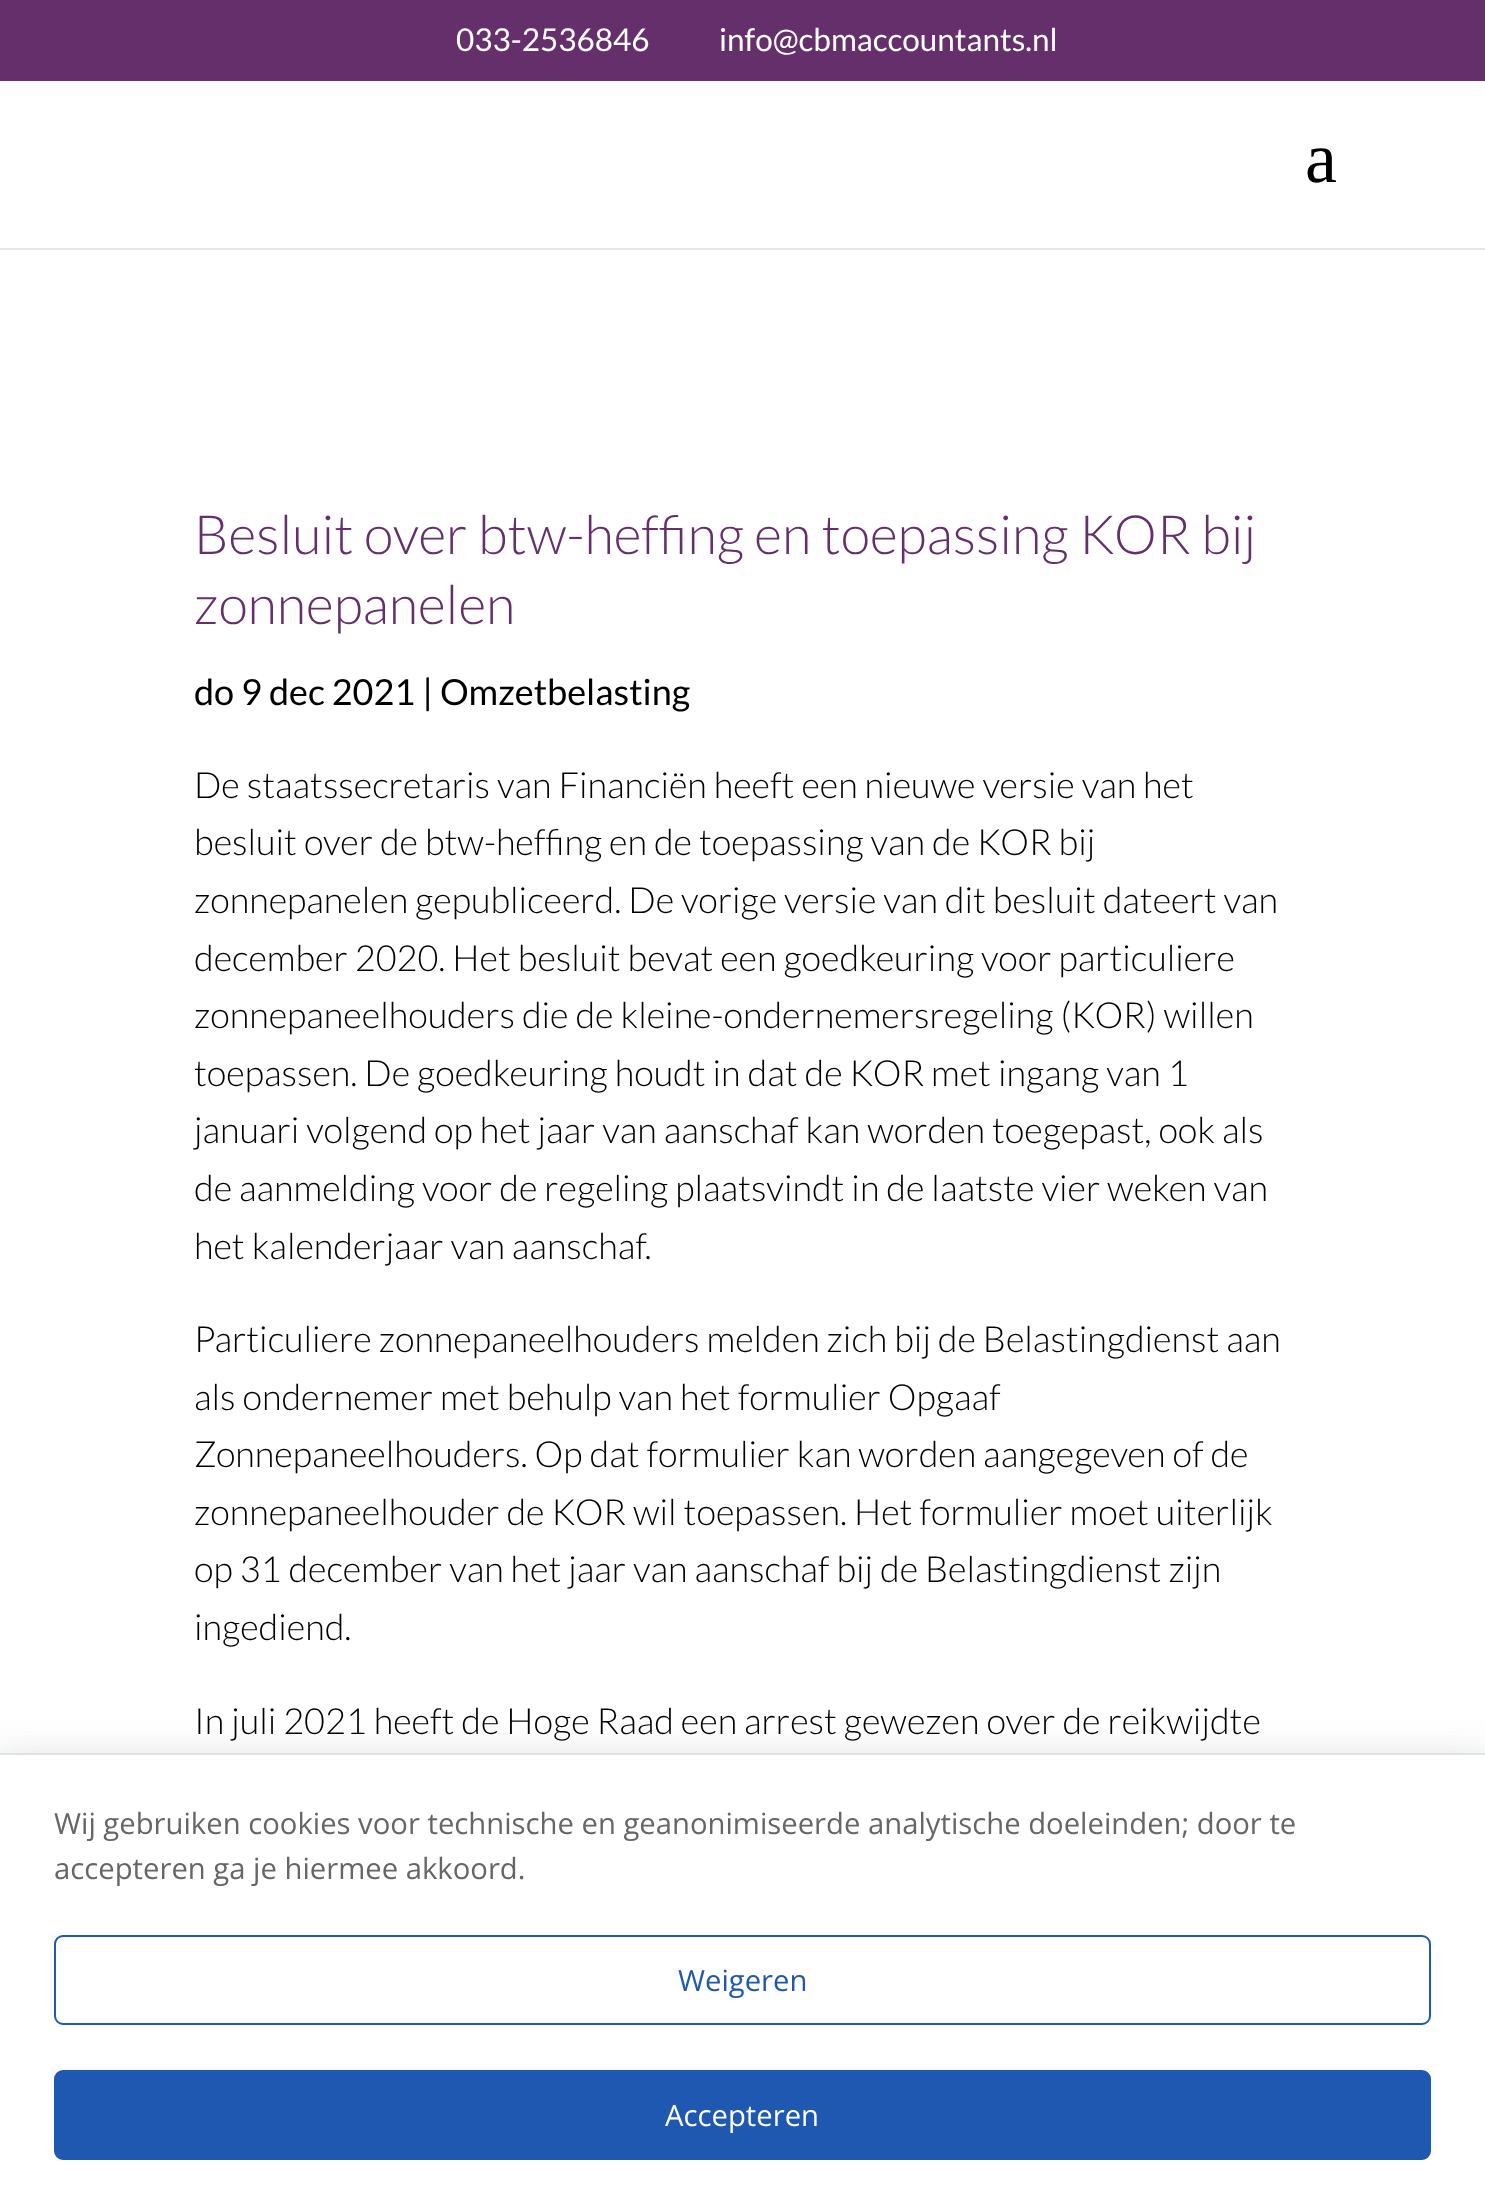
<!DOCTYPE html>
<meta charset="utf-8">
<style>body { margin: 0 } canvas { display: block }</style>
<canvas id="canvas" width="1485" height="2204"></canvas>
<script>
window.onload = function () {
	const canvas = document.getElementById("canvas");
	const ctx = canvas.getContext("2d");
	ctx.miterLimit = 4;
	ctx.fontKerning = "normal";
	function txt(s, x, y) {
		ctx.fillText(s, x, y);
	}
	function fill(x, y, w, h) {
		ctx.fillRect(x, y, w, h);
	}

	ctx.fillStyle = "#FFFFFF";
	fill(0, 0, 1485, 2204);
	ctx.fillStyle = "#652F6C";
	fill(0, 0, 1485, 81);
	ctx.fillStyle = "#E6E6E6";
	fill(0, 248, 1485, 2);
	ctx.fillStyle = "rgba(36, 47, 66, 0.31)";
	ctx.filter = "blur(22.5px)";
	ctx.beginPath();
	ctx.rect(-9, 1769, 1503, 423);
	ctx.fill();
	ctx.filter = "none";
	ctx.strokeStyle = "rgba(36, 47, 66, 0.08)";
	ctx.lineWidth = 2;
	ctx.strokeRect(-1, 1754, 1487, 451);
	ctx.fillStyle = "#FFFFFF";
	fill(0, 1755, 1485, 449);
	ctx.beginPath();
	ctx.roundRect(55, 1936, 1375, 88, 8);
	ctx.strokeStyle = "#1E58B1";
	ctx.stroke();
	ctx.fillStyle = "#1E58B1";
	ctx.beginPath();
	ctx.roundRect(55, 2071, 1375, 88, 8);
	ctx.fill();
	ctx.stroke();
	ctx.font = "31.5px Lato";
	ctx.fillStyle = "#FFFFFF";
	txt("033-2536846", 456, 51);
	txt("info@cbmaccountants.nl", 719, 51);
	ctx.font = "72px Liberation Serif";
	ctx.fillStyle = "#000000";
	txt("a", 1305, 182);
	ctx.font = "300 54px Lato";
	ctx.fillStyle = "#652F6C";
	txt("Besluit over btw-heffing en toepassing KOR bij", 194, 554);
	txt("zonnepanelen", 194, 624);
	ctx.font = "36px Lato";
	ctx.fillStyle = "#000000";
	txt("do 9 dec 2021 | Omzetbelasting", 194, 705);
	ctx.font = "300 36px Lato";
	txt("De staatssecretaris van Financiën heeft een nieuwe versie van het", 194, 798);
	txt("besluit over de btw-heffing en de toepassing van de KOR bij", 194, 855);
	txt("zonnepanelen gepubliceerd. De vorige versie van dit besluit dateert van", 194, 913);
	txt("december 2020. Het besluit bevat een goedkeuring voor particuliere", 194, 971);
	txt("zonnepaneelhouders die de kleine-ondernemersregeling (KOR) willen", 194, 1028);
	txt("toepassen. De goedkeuring houdt in dat de KOR met ingang van 1", 194, 1086);
	txt("januari volgend op het jaar van aanschaf kan worden toegepast, ook als", 194, 1143);
	txt("de aanmelding voor de regeling plaatsvindt in de laatste vier weken van", 194, 1201);
	txt("het kalenderjaar van aanschaf.", 194, 1259);
	txt("Particuliere zonnepaneelhouders melden zich bij de Belastingdienst aan", 194, 1352);
	txt("als ondernemer met behulp van het formulier Opgaaf", 194, 1410);
	txt("Zonnepaneelhouders. Op dat formulier kan worden aangegeven of de", 194, 1467);
	txt("zonnepaneelhouder de KOR wil toepassen. Het formulier moet uiterlijk", 194, 1525);
	txt("op 31 december van het jaar van aanschaf bij de Belastingdienst zijn", 194, 1582);
	txt("ingediend.", 194, 1640);
	txt("In juli 2021 heeft de Hoge Raad een arrest gewezen over de reikwijdte", 194, 1734);
	ctx.font = "29.25px Open Sans";
	ctx.fillStyle = "#666666";
	txt("Wij gebruiken cookies voor technische en geanonimiseerde analytische doeleinden; door te", 54, 1834);
	txt("accepteren ga je hiermee akkoord.", 54, 1879);
	ctx.fillStyle = "#1E58B1";
	txt("Weigeren", 678, 1991);
	ctx.fillStyle = "#FFFFFF";
	txt("Accepteren", 665, 2126);
};
</script>
